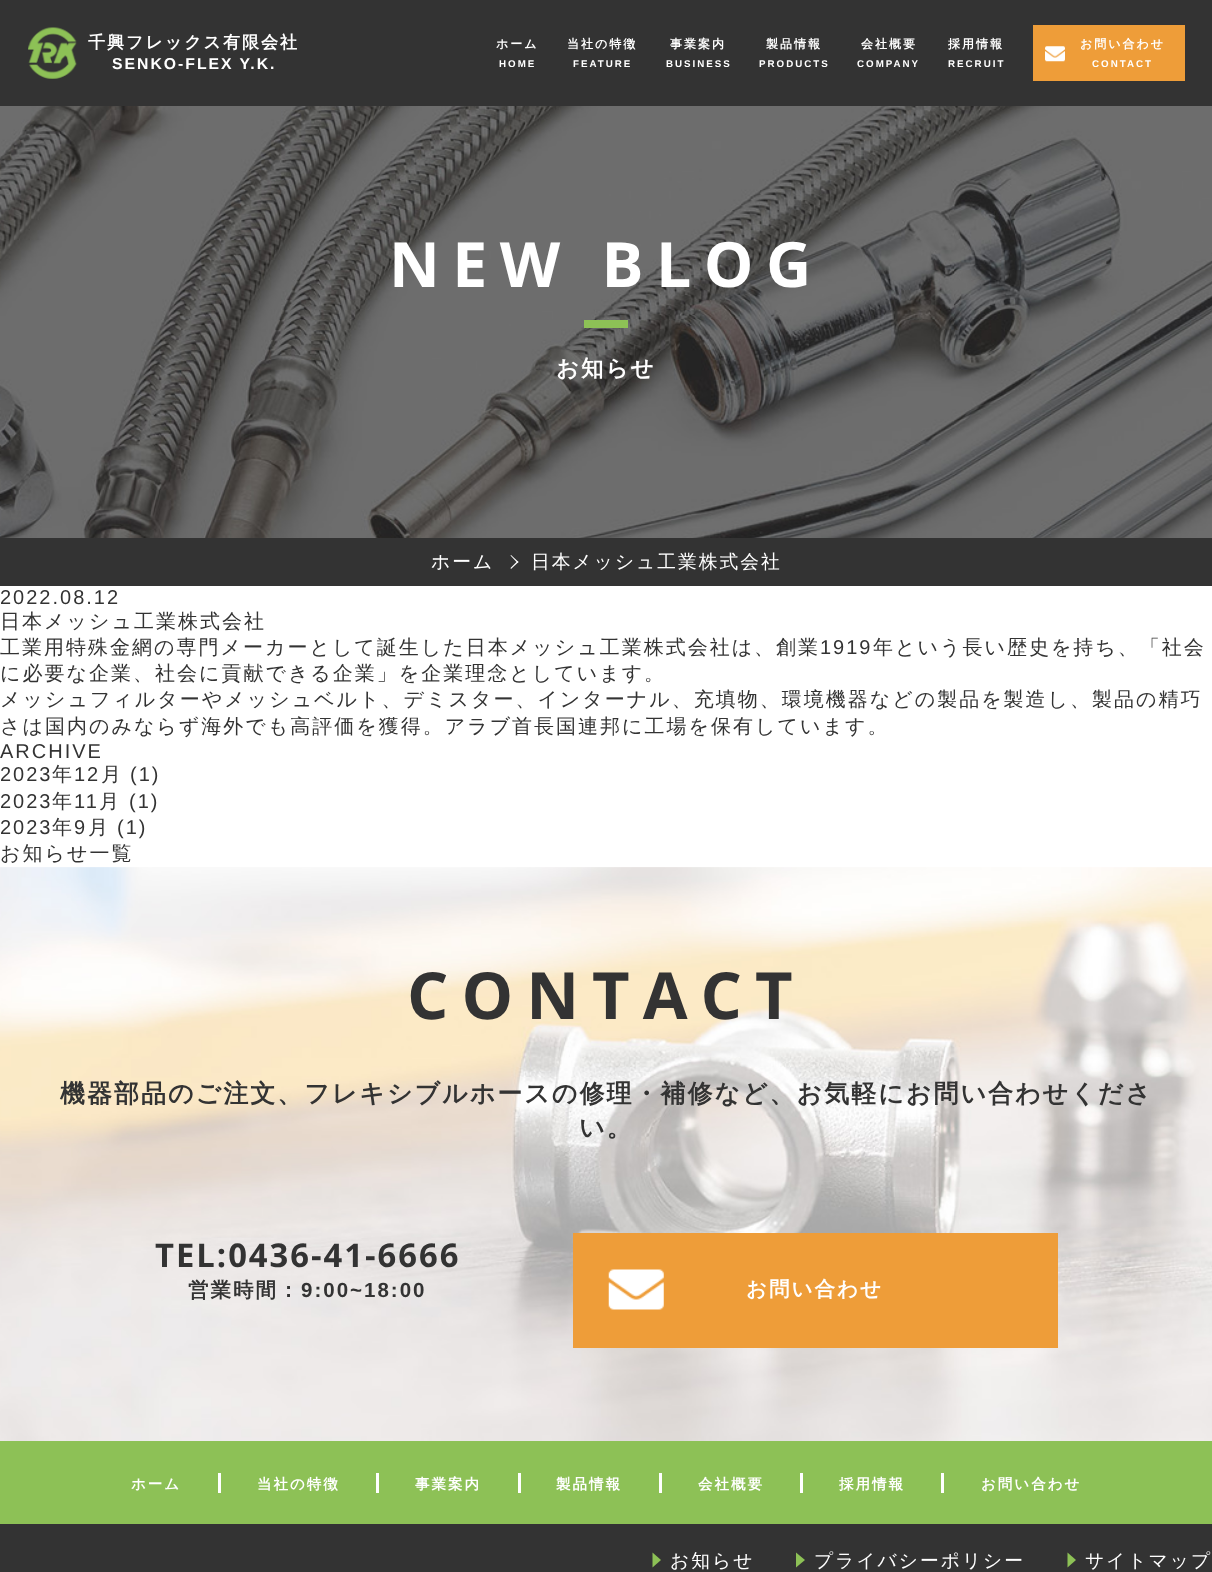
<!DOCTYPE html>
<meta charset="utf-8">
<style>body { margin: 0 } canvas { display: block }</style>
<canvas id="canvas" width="1212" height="1572"></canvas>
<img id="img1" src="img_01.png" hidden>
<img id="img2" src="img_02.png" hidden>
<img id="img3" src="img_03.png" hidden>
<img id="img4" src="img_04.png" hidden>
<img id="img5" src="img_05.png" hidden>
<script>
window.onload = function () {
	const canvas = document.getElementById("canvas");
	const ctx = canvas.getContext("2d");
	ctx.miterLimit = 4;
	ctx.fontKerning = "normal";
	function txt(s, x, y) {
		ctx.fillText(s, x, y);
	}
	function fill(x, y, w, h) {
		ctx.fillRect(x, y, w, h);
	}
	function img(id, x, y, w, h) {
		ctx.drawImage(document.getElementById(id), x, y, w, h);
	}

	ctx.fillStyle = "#FFFFFF";
	fill(0, 0, 1212, 1572);
	ctx.fillStyle = "#333333";
	fill(0, 0, 1212, 106);
	img("img1", 28, 27, 49, 52);
	ctx.fillStyle = "#EE9D39";
	fill(1033, 25, 152, 56);
	img("img2", 1045, 46, 20, 16);
	img("img3", 0, 106, 1212, 432);
	ctx.fillStyle = "#8DC156";
	fill(584, 320, 44, 8);
	ctx.fillStyle = "#333333";
	fill(0, 538, 1212, 48);
	ctx.fillStyle = "#FFFFFF";
	ctx.beginPath();
	ctx.moveTo(511, 555);
	ctx.lineTo(518.5, 562);
	ctx.lineTo(517.5, 563);
	ctx.lineTo(510.5, 555.5);
	ctx.closePath();
	ctx.fill();
	ctx.beginPath();
	ctx.moveTo(517.5, 561);
	ctx.lineTo(518.5, 562);
	ctx.lineTo(511, 569);
	ctx.lineTo(510.5, 568);
	ctx.closePath();
	ctx.fill();
	img("img4", 0, 867, 1212, 574);
	ctx.fillStyle = "#EE9D39";
	fill(573, 1233, 485, 115);
	img("img5", 608, 1269, 56, 41);
	ctx.fillStyle = "#333333";
	fill(0, 1524, 1212, 48);
	ctx.fillStyle = "#8DC156";
	fill(0, 1441, 1212, 83);
	ctx.fillStyle = "#FFFFFF";
	fill(218, 1473, 3, 20);
	fill(376, 1473, 3, 20);
	fill(518, 1473, 3, 20);
	fill(659, 1473, 3, 20);
	fill(800, 1473, 3, 20);
	fill(941, 1473, 3, 20);
	ctx.fillStyle = "#8DC156";
	ctx.beginPath();
	ctx.moveTo(652.5, 1567.5);
	ctx.lineTo(652.5, 1552.5);
	ctx.lineTo(661, 1560);
	ctx.closePath();
	ctx.fill();
	ctx.beginPath();
	ctx.moveTo(796, 1567.5);
	ctx.lineTo(796, 1552.5);
	ctx.lineTo(805, 1560);
	ctx.closePath();
	ctx.fill();
	ctx.beginPath();
	ctx.moveTo(1067.5, 1567.5);
	ctx.lineTo(1067.5, 1552.5);
	ctx.lineTo(1076, 1560);
	ctx.closePath();
	ctx.fill();
	ctx.letterSpacing = "2px";
	ctx.font = "bold 17px WenQuanYi Zen Hei";
	ctx.fillStyle = "#FFFFFF";
	txt("千興フレックス有限会社", 88, 48);
	ctx.font = "bold 15.75px Liberation Sans";
	txt("SENKO-FLEX Y.K.", 112, 69);
	ctx.font = "bold 12px WenQuanYi Zen Hei";
	txt("ホーム", 496, 48);
	ctx.font = "bold 9.75px Liberation Sans";
	txt("HOME", 499, 67);
	ctx.font = "bold 12px WenQuanYi Zen Hei";
	txt("当社の特徴", 567, 48);
	ctx.font = "bold 9.75px Liberation Sans";
	txt("FEATURE", 573, 67);
	ctx.font = "bold 12px WenQuanYi Zen Hei";
	txt("事業案内", 670, 48);
	ctx.font = "bold 9.75px Liberation Sans";
	txt("BUSINESS", 666, 67);
	ctx.font = "bold 12px WenQuanYi Zen Hei";
	txt("製品情報", 766, 48);
	ctx.font = "bold 9.75px Liberation Sans";
	txt("PRODUCTS", 759, 67);
	ctx.font = "bold 12px WenQuanYi Zen Hei";
	txt("会社概要", 861, 48);
	ctx.font = "bold 9.75px Liberation Sans";
	txt("COMPANY", 857, 67);
	ctx.font = "bold 12px WenQuanYi Zen Hei";
	txt("採用情報", 948, 48);
	ctx.font = "bold 9.75px Liberation Sans";
	txt("RECRUIT", 948, 67);
	ctx.font = "bold 12px WenQuanYi Zen Hei";
	txt("お問い合わせ", 1080, 48);
	ctx.font = "bold 9.75px Liberation Sans";
	txt("CONTACT", 1092, 67);
	ctx.letterSpacing = "12.5px";
	ctx.font = "bold 62.5px Open Sans";
	txt("NEW BLOG", 389, 287);
	ctx.letterSpacing = "2px";
	ctx.font = "bold 22.5px WenQuanYi Zen Hei";
	txt("お知らせ", 556, 376);
	ctx.font = "500 18.75px WenQuanYi Zen Hei";
	txt("ホーム", 431, 568);
	txt("日本メッシュ工業株式会社", 531, 568);
	ctx.font = "20px Liberation Sans";
	ctx.fillStyle = "#333333";
	txt("2022.08.12", 0, 604);
	ctx.font = "500 20px WenQuanYi Zen Hei";
	txt("日本メッシュ工業株式会社", 0, 628);
	txt("工業用特殊金網の専門メーカーとして誕生した日本メッシュ工業株式会社は、創業", 0, 654);
	ctx.font = "20px Liberation Sans";
	txt("1919", 820, 654);
	ctx.font = "500 20px WenQuanYi Zen Hei";
	txt("年という長い歴史を持ち、「社会", 873, 654);
	txt("に必要な企業、社会に貢献できる企業」を企業理念としています。", 0, 680);
	txt("メッシュフィルターやメッシュベルト、デミスター、インターナル、充填物、環境機器などの製品を製造し、製品の精巧", 0, 706);
	txt("さは国内のみならず海外でも高評価を獲得。アラブ首長国連邦に工場を保有しています。", 0, 733);
	ctx.font = "20px Liberation Sans";
	txt("ARCHIVE", 0, 758);
	txt("2023", 0, 781);
	ctx.font = "500 20px WenQuanYi Zen Hei";
	txt("年", 52, 781);
	ctx.font = "20px Liberation Sans";
	txt("12", 74, 781);
	ctx.font = "500 20px WenQuanYi Zen Hei";
	txt("月", 101, 781);
	ctx.font = "20px Liberation Sans";
	txt("(1)", 130, 781);
	txt("2023", 0, 808);
	ctx.font = "500 20px WenQuanYi Zen Hei";
	txt("年", 52, 808);
	ctx.font = "20px Liberation Sans";
	txt("11", 74, 808);
	ctx.font = "500 20px WenQuanYi Zen Hei";
	txt("月", 99, 808);
	ctx.font = "20px Liberation Sans";
	txt("(1)", 129, 808);
	txt("2023", 0, 834);
	ctx.font = "500 20px WenQuanYi Zen Hei";
	txt("年", 52, 834);
	ctx.font = "20px Liberation Sans";
	txt("9", 74, 834);
	ctx.font = "500 20px WenQuanYi Zen Hei";
	txt("月", 88, 834);
	ctx.font = "20px Liberation Sans";
	txt("(1)", 117, 834);
	ctx.font = "500 20px WenQuanYi Zen Hei";
	txt("お知らせ一覧", 0, 860);
	ctx.letterSpacing = "13px";
	ctx.font = "bold 65px Open Sans";
	txt("CONTACT", 407, 1019);
	ctx.letterSpacing = "2px";
	ctx.font = "bold 25px WenQuanYi Zen Hei";
	txt("機器部品のご注文、フレキシブルホースの修理・補修など、お気軽にお問い合わせくださ", 60, 1102);
	txt("い。", 579, 1136);
	ctx.font = "bold 32.75px Open Sans";
	txt("TEL:0436-41-6666", 155, 1267);
	ctx.font = "bold 20.5px WenQuanYi Zen Hei";
	txt("営業時間：", 188, 1297);
	ctx.font = "bold 20.5px Liberation Sans";
	txt("9:00~18:00", 301, 1297);
	ctx.font = "bold 20.5px WenQuanYi Zen Hei";
	ctx.fillStyle = "#FFFFFF";
	txt("お問い合わせ", 746, 1296);
	ctx.font = "bold 14.5px WenQuanYi Zen Hei";
	txt("ホーム", 131, 1489);
	txt("当社の特徴", 257, 1489);
	txt("事業案内", 415, 1489);
	txt("製品情報", 556, 1489);
	txt("会社概要", 698, 1489);
	txt("採用情報", 839, 1489);
	txt("お問い合わせ", 981, 1489);
	ctx.font = "500 18.75px WenQuanYi Zen Hei";
	txt("お知らせ", 670, 1567);
	txt("プライバシーポリシー", 814, 1567);
	txt("サイトマップ", 1085, 1567);
};
</script>
